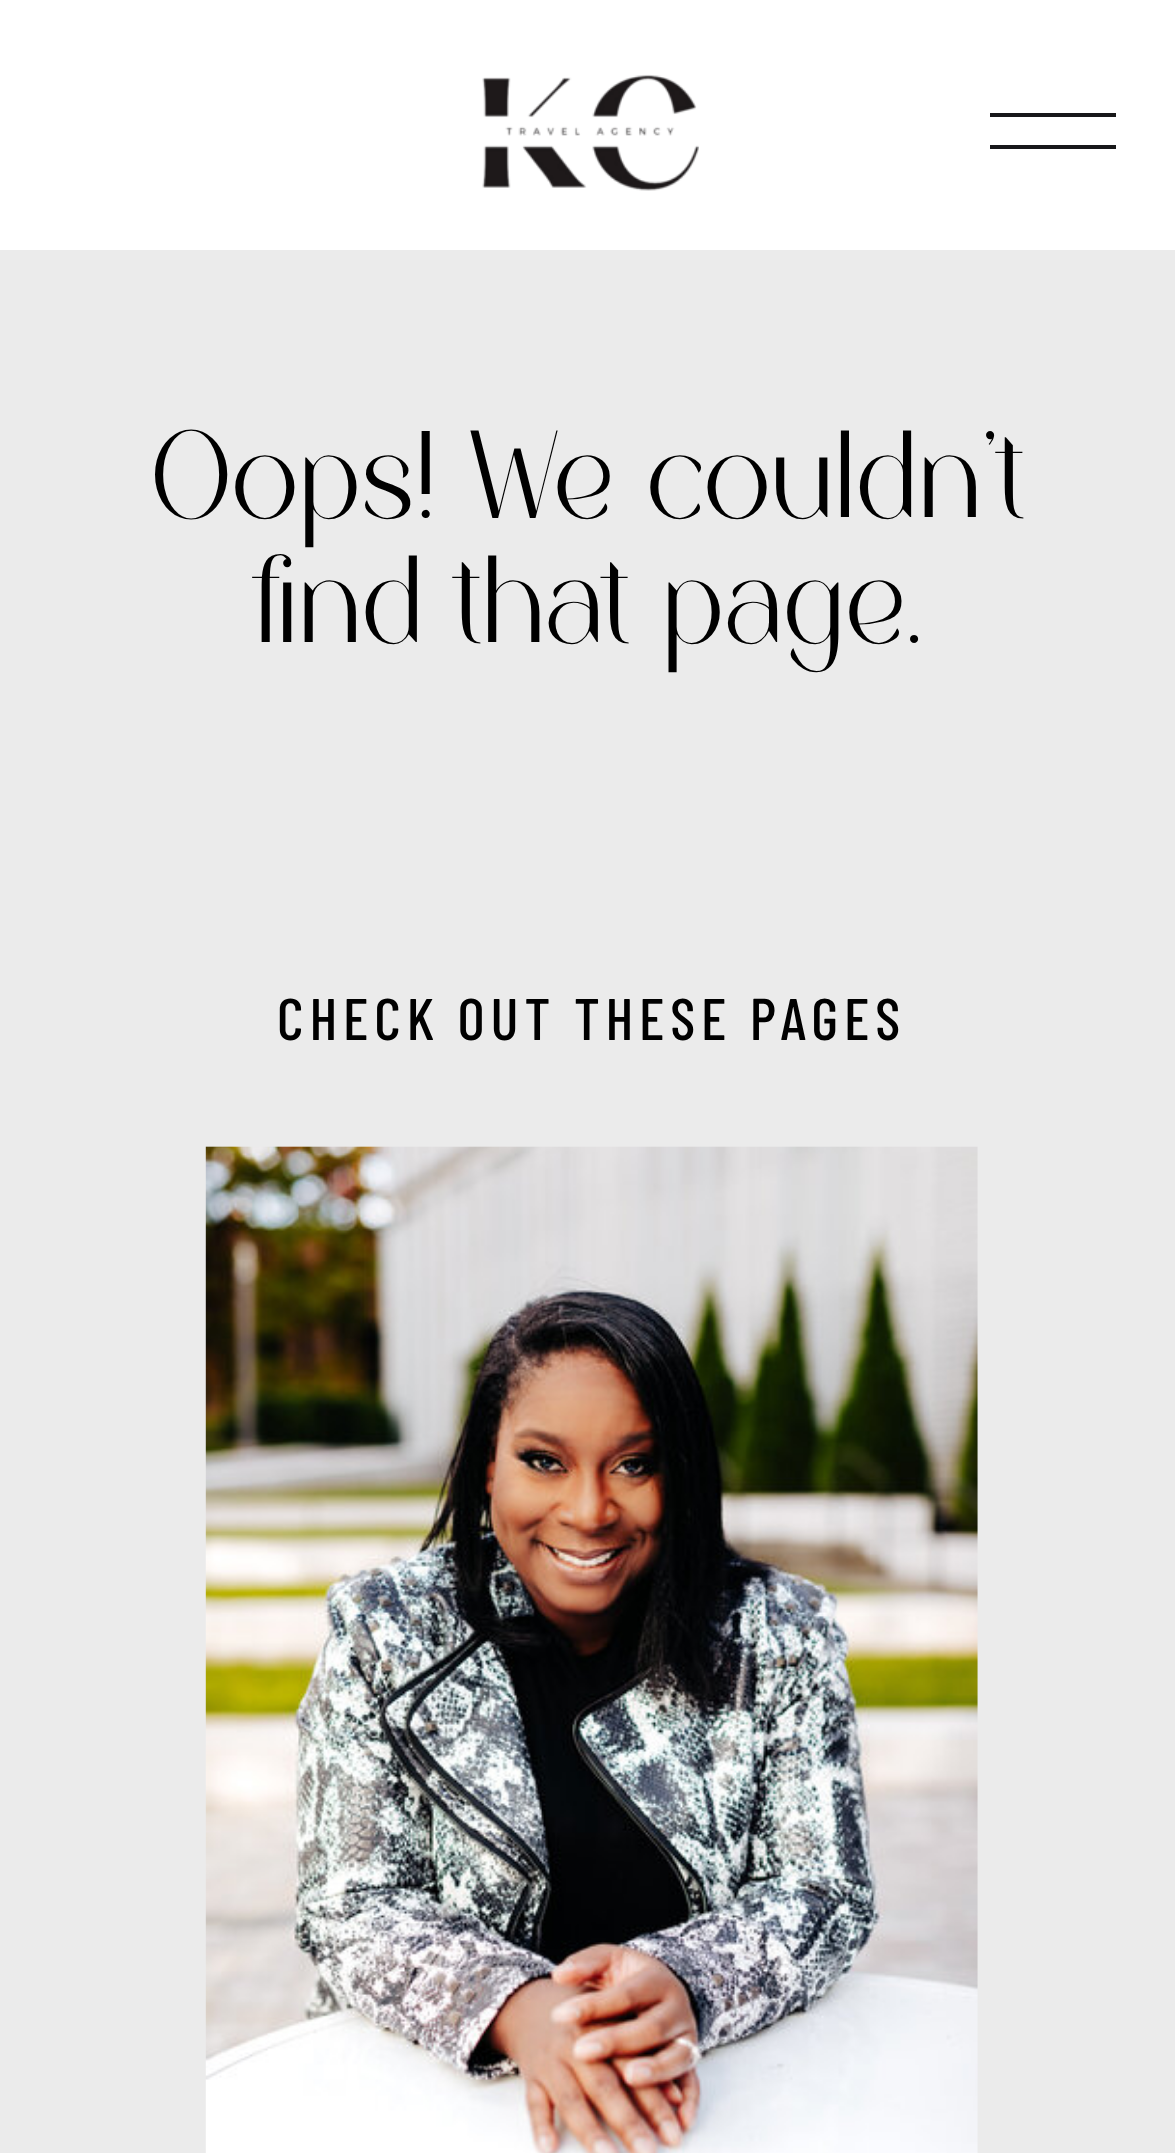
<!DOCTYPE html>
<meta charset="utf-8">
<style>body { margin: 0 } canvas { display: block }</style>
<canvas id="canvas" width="1175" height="2153"></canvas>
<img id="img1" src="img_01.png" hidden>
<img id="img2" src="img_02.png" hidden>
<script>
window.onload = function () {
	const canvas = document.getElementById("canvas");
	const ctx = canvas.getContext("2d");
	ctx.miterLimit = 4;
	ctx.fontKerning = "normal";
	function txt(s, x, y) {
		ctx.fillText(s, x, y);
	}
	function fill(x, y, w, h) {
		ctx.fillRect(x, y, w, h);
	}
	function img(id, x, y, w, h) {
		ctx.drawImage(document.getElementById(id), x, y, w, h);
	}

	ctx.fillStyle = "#FFFFFF";
	fill(0, 0, 1175, 2153);
	img("img1", 482, 74, 217, 117);
	ctx.fillStyle = "#18181A";
	fill(990, 113, 126, 4);
	fill(990, 145, 126, 4);
	ctx.fillStyle = "#EBEBEB";
	fill(0, 250, 1175, 1903);
	img("img2", 205, 1146, 773, 1007);
	ctx.font = "125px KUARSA";
	ctx.fillStyle = "#000000";
	txt("Oops! We couldn't", 151, 518);
	txt("find that page.", 255, 643);
	ctx.letterSpacing = "5.9px";
	ctx.font = "500 58.75px Barlow Condensed";
	txt("CHECK OUT THESE PAGES", 277, 1040);
};
</script>
